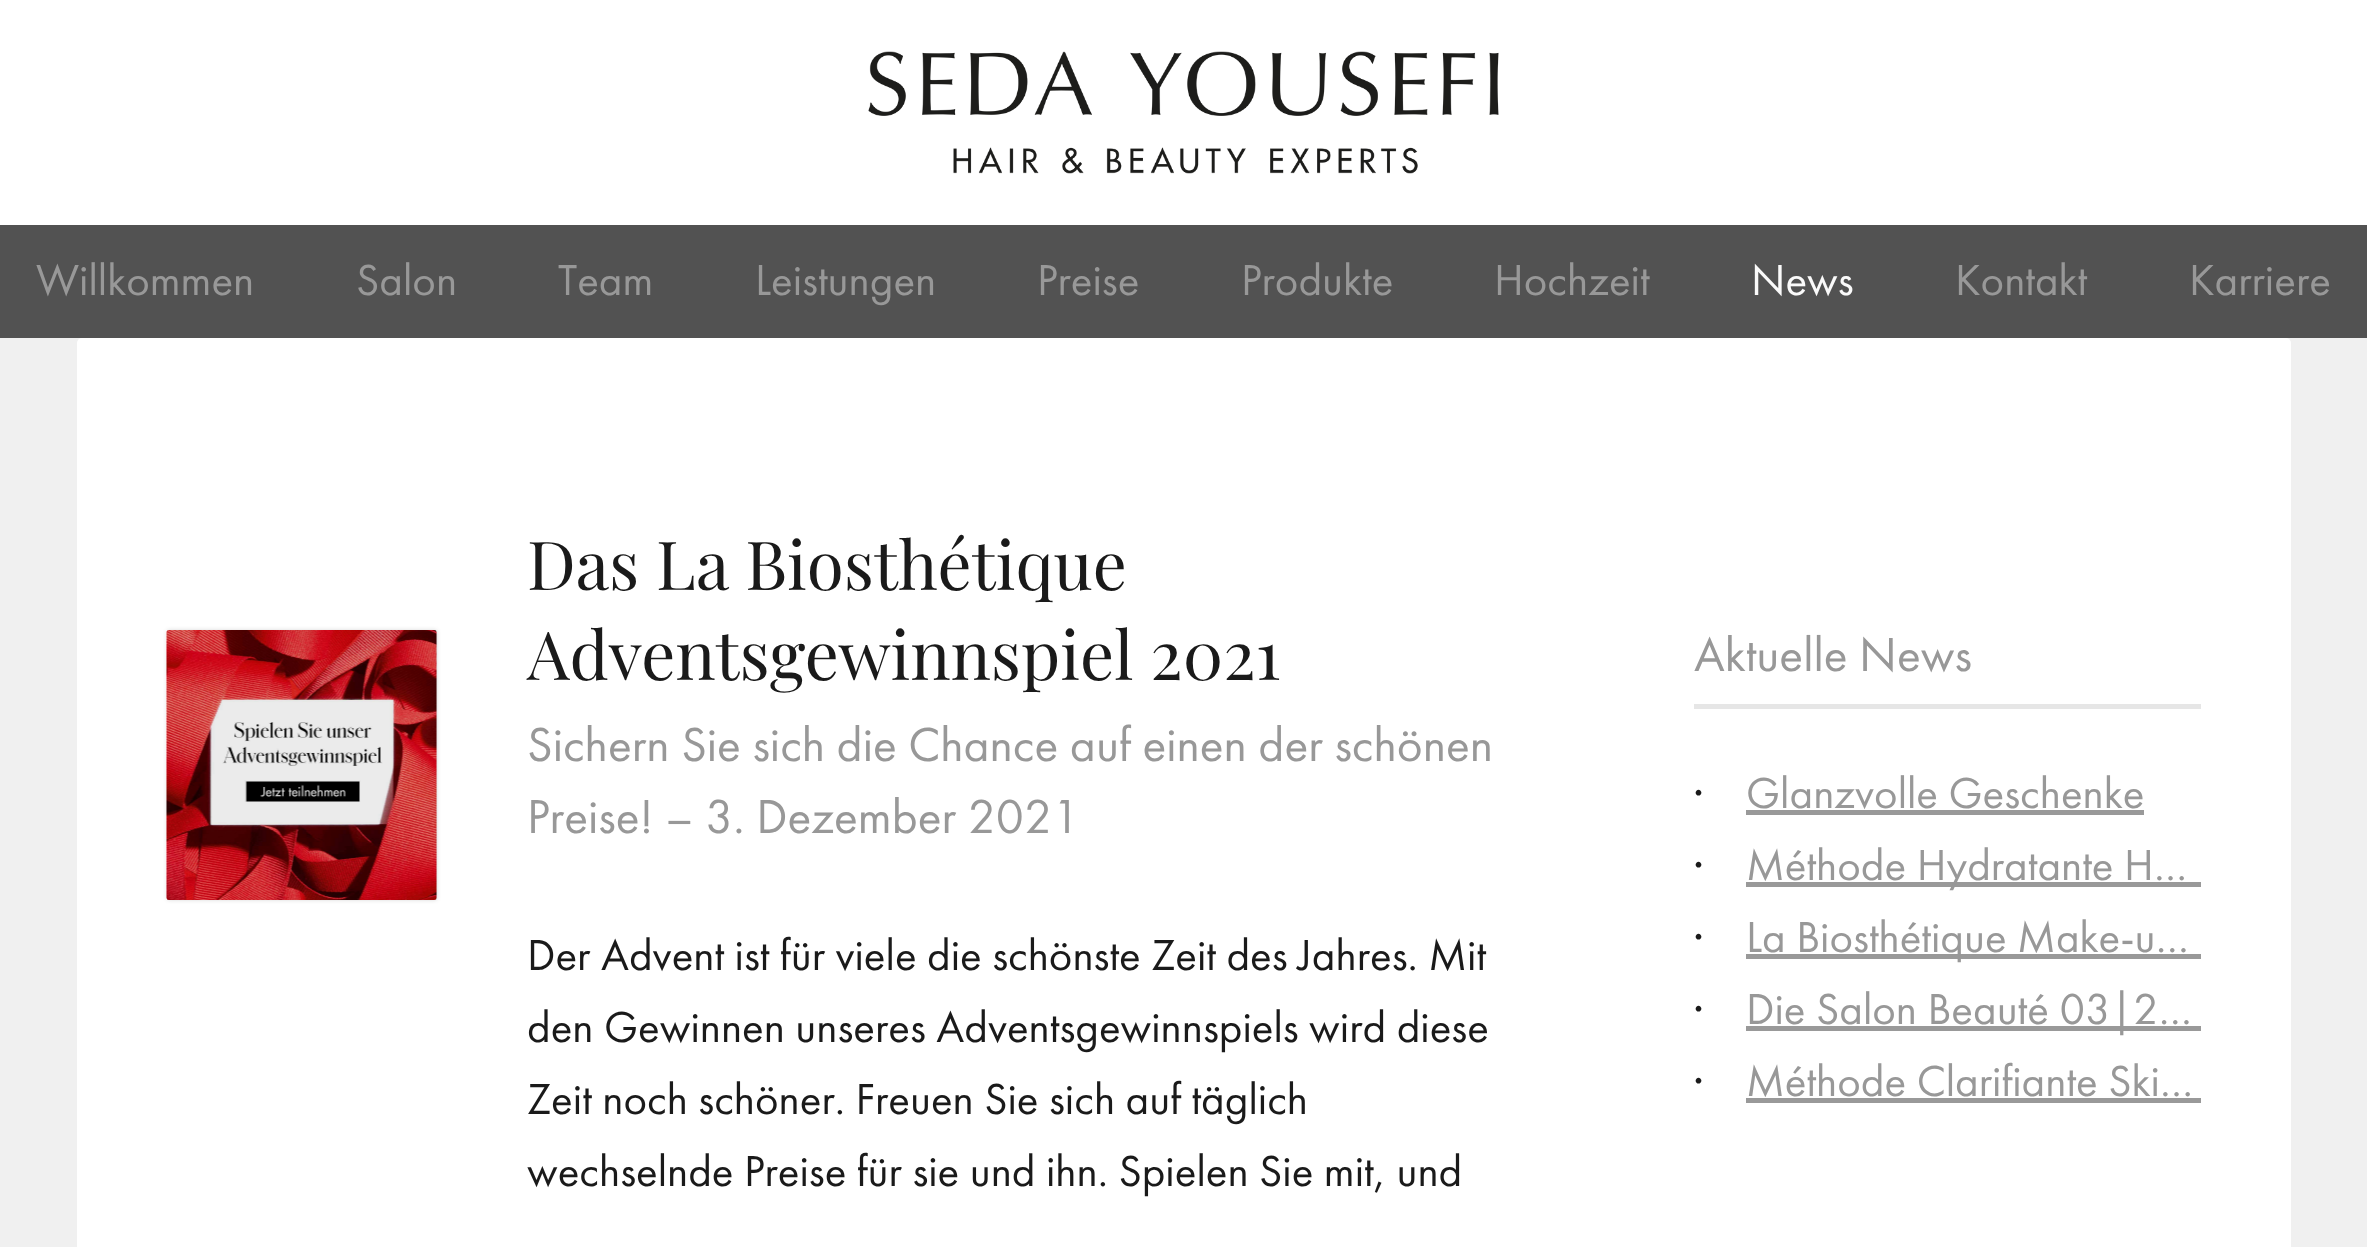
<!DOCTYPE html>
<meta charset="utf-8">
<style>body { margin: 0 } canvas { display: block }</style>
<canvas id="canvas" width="2367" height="1247"></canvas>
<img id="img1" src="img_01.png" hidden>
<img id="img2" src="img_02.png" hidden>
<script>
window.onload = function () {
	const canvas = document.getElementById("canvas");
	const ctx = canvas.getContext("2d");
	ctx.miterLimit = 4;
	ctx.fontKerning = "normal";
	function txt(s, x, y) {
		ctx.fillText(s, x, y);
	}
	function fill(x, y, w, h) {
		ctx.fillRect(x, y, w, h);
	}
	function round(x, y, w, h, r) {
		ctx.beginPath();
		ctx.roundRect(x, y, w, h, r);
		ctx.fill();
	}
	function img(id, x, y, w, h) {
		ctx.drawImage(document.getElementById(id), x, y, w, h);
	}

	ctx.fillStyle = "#F0F0F0";
	fill(0, 0, 2367, 1247);
	ctx.fillStyle = "#FFFFFF";
	fill(0, 0, 2367, 225);
	img("img1", 868, 51, 631, 123);
	ctx.fillStyle = "#525252";
	fill(0, 225, 2367, 113);
	ctx.fillStyle = "#FFFFFF";
	round(77, 338, 2214, 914, 5);
	ctx.fillStyle = "rgba(0, 0, 0, 0.15)";
	ctx.filter = "blur(2px)";
	ctx.beginPath();
	ctx.roundRect(167, 630, 270, 270, 2);
	ctx.fill();
	ctx.filter = "none";
	img("img2", 166, 630, 271, 270);
	ctx.fillStyle = "rgba(0, 0, 0, 0.08)";
	fill(167, 630, 270, 270);
	ctx.fillStyle = "#E6E6E6";
	fill(1694, 704, 507, 5);
	ctx.fillStyle = "#999999";
	fill(1746, 810, 398, 5);
	fill(1746, 882, 455, 5);
	fill(1746, 954, 455, 5);
	fill(1746, 1026, 455, 5);
	fill(1746, 1098, 455, 5);
	ctx.font = "45px Futura PT";
	ctx.fillStyle = "#989898";
	txt("Willkommen", 36, 295);
	txt("Salon", 356, 295);
	txt("Team", 558, 295);
	txt("Leistungen", 755, 295);
	txt("Preise", 1037, 295);
	txt("Produkte", 1241, 295);
	txt("Hochzeit", 1494, 295);
	ctx.fillStyle = "#FAFAFA";
	txt("News", 1751, 295);
	ctx.fillStyle = "#989898";
	txt("Kontakt", 1955, 295);
	txt("Karriere", 2189, 295);
	ctx.font = "67.5px Playfair Display";
	ctx.fillStyle = "#1A1A1A";
	txt("Das La Biosthétique", 527, 590);
	txt("Adventsgewinnspiel 2021", 527, 680);
	ctx.font = "49.5px Futura PT";
	ctx.fillStyle = "#989898";
	txt("Sichern Sie sich die Chance auf einen der schönen", 527, 761);
	txt("Preise! – 3. Dezember 2021", 527, 833);
	ctx.font = "45px Futura PT";
	ctx.fillStyle = "#1A1A1A";
	txt("Der Advent ist für viele die schönste Zeit des Jahres. Mit", 527, 970);
	txt("den Gewinnen unseres Adventsgewinnspiels wird diese", 527, 1042);
	txt("Zeit noch schöner. Freuen Sie sich auf täglich", 527, 1114);
	txt("wechselnde Preise für sie und ihn. Spielen Sie mit, und", 527, 1186);
	ctx.font = "49.5px Futura PT";
	ctx.fillStyle = "#989898";
	txt("Aktuelle News", 1694, 671);
	ctx.font = "45px Futura PT";
	ctx.fillStyle = "#1A1A1A";
	txt("·", 1694, 808);
	ctx.fillStyle = "#989898";
	txt("Glanzvolle Geschenke", 1746, 808);
	ctx.fillStyle = "#1A1A1A";
	txt("·", 1694, 880);
	ctx.fillStyle = "#989898";
	txt("Méthode Hydratante H…", 1746, 880);
	ctx.fillStyle = "#1A1A1A";
	txt("·", 1694, 952);
	ctx.fillStyle = "#989898";
	txt("La Biosthétique Make-u…", 1746, 952);
	ctx.fillStyle = "#1A1A1A";
	txt("·", 1694, 1024);
	ctx.fillStyle = "#989898";
	txt("Die Salon Beauté 03|2…", 1746, 1024);
	ctx.fillStyle = "#1A1A1A";
	txt("·", 1694, 1096);
	ctx.fillStyle = "#989898";
	txt("Méthode Clarifiante Ski…", 1746, 1096);
};
</script>
